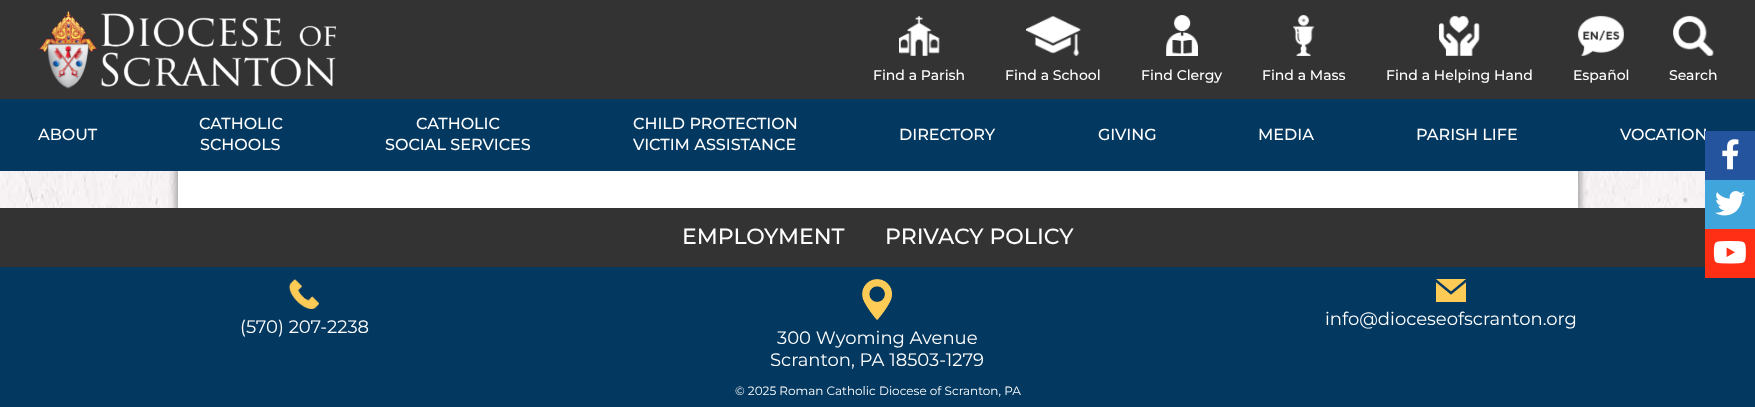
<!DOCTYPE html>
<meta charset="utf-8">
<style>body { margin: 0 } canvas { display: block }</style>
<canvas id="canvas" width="1755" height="407"></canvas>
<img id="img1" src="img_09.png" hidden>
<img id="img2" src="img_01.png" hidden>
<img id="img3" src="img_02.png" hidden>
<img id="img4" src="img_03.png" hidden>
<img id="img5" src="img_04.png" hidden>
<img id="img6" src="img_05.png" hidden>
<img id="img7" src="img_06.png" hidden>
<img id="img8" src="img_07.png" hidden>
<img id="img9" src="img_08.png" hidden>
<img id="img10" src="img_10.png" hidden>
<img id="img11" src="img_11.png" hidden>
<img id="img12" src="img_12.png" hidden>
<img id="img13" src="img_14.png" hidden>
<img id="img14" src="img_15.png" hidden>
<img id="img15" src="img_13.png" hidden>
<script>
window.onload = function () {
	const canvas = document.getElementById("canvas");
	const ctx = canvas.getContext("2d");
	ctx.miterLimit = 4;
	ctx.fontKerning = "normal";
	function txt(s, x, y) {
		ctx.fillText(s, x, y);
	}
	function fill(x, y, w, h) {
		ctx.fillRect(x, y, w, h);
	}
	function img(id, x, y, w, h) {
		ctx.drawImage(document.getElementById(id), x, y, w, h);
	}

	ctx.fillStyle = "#FFFFFF";
	fill(0, 0, 1755, 407);
	img("img1", 0, 171, 1705, 37);
	ctx.fillStyle = "rgba(0, 0, 0, 0.3)";
	ctx.filter = "blur(3px)";
	ctx.beginPath();
	ctx.rect(175, -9, 1406, 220);
	ctx.fill();
	ctx.filter = "none";
	ctx.fillStyle = "#333333";
	fill(0, 0, 1755, 99);
	img("img2", 39, 11, 298, 78);
	img("img3", 899, 15, 41, 41);
	img("img4", 1026, 15, 55, 41);
	img("img5", 1166, 15, 32, 41);
	img("img6", 1293, 15, 22, 41);
	img("img7", 1439, 15, 41, 41);
	img("img8", 1577, 15, 47, 41);
	img("img9", 1673, 15, 41, 41);
	ctx.fillStyle = "#033860";
	fill(0, 99, 1755, 72);
	ctx.fillStyle = "#FFFFFF";
	fill(178, 171, 1400, 37);
	ctx.fillStyle = "#333333";
	fill(0, 208, 1705, 59);
	ctx.fillStyle = "#033860";
	fill(0, 267, 1755, 140);
	img("img10", 289, 279, 30, 30);
	img("img11", 1436, 279, 30, 23);
	img("img12", 862, 279, 30, 41);
	ctx.fillStyle = "#40A5DA";
	fill(1705, 180, 50, 49);
	img("img13", 1715, 191, 30, 25);
	ctx.fillStyle = "#FF2F16";
	fill(1705, 229, 50, 49);
	img("img14", 1713, 241, 33, 23);
	ctx.font = "500 14px Montserrat";
	ctx.fillStyle = "#FFFFFF";
	txt("Find a Parish", 873, 80);
	txt("Find a School", 1005, 80);
	txt("Find Clergy", 1141, 80);
	txt("Find a Mass", 1262, 80);
	txt("Find a Helping Hand", 1386, 80);
	txt("Español", 1573, 80);
	txt("Search", 1669, 80);
	ctx.font = "500 16px Montserrat";
	txt("ABOUT", 38, 140);
	txt("CATHOLIC", 199, 129);
	txt("SCHOOLS", 200, 150);
	txt("CATHOLIC", 416, 129);
	txt("SOCIAL SERVICES", 385, 150);
	txt("CHILD PROTECTION", 633, 129);
	txt("VICTIM ASSISTANCE", 633, 150);
	txt("DIRECTORY", 899, 140);
	txt("GIVING", 1098, 140);
	txt("MEDIA", 1258, 140);
	txt("PARISH LIFE", 1416, 140);
	txt("VOCATION", 1620, 140);
	ctx.font = "500 22px Montserrat";
	txt("EMPLOYMENT", 682, 244);
	txt("PRIVACY POLICY", 885, 244);
	ctx.font = "18px Montserrat";
	txt("(570) 207-2238", 240, 333);
	txt("info@dioceseofscranton.org", 1325, 325);
	txt("300 Wyoming Avenue", 777, 344);
	txt("Scranton, PA 18503-1279", 770, 366);
	ctx.font = "12px Montserrat";
	txt("© 2025 Roman Catholic Diocese of Scranton, PA", 735, 395);
	ctx.fillStyle = "#25549E";
	fill(1705, 131, 50, 49);
	img("img15", 1722, 139, 17, 31);
};
</script>
